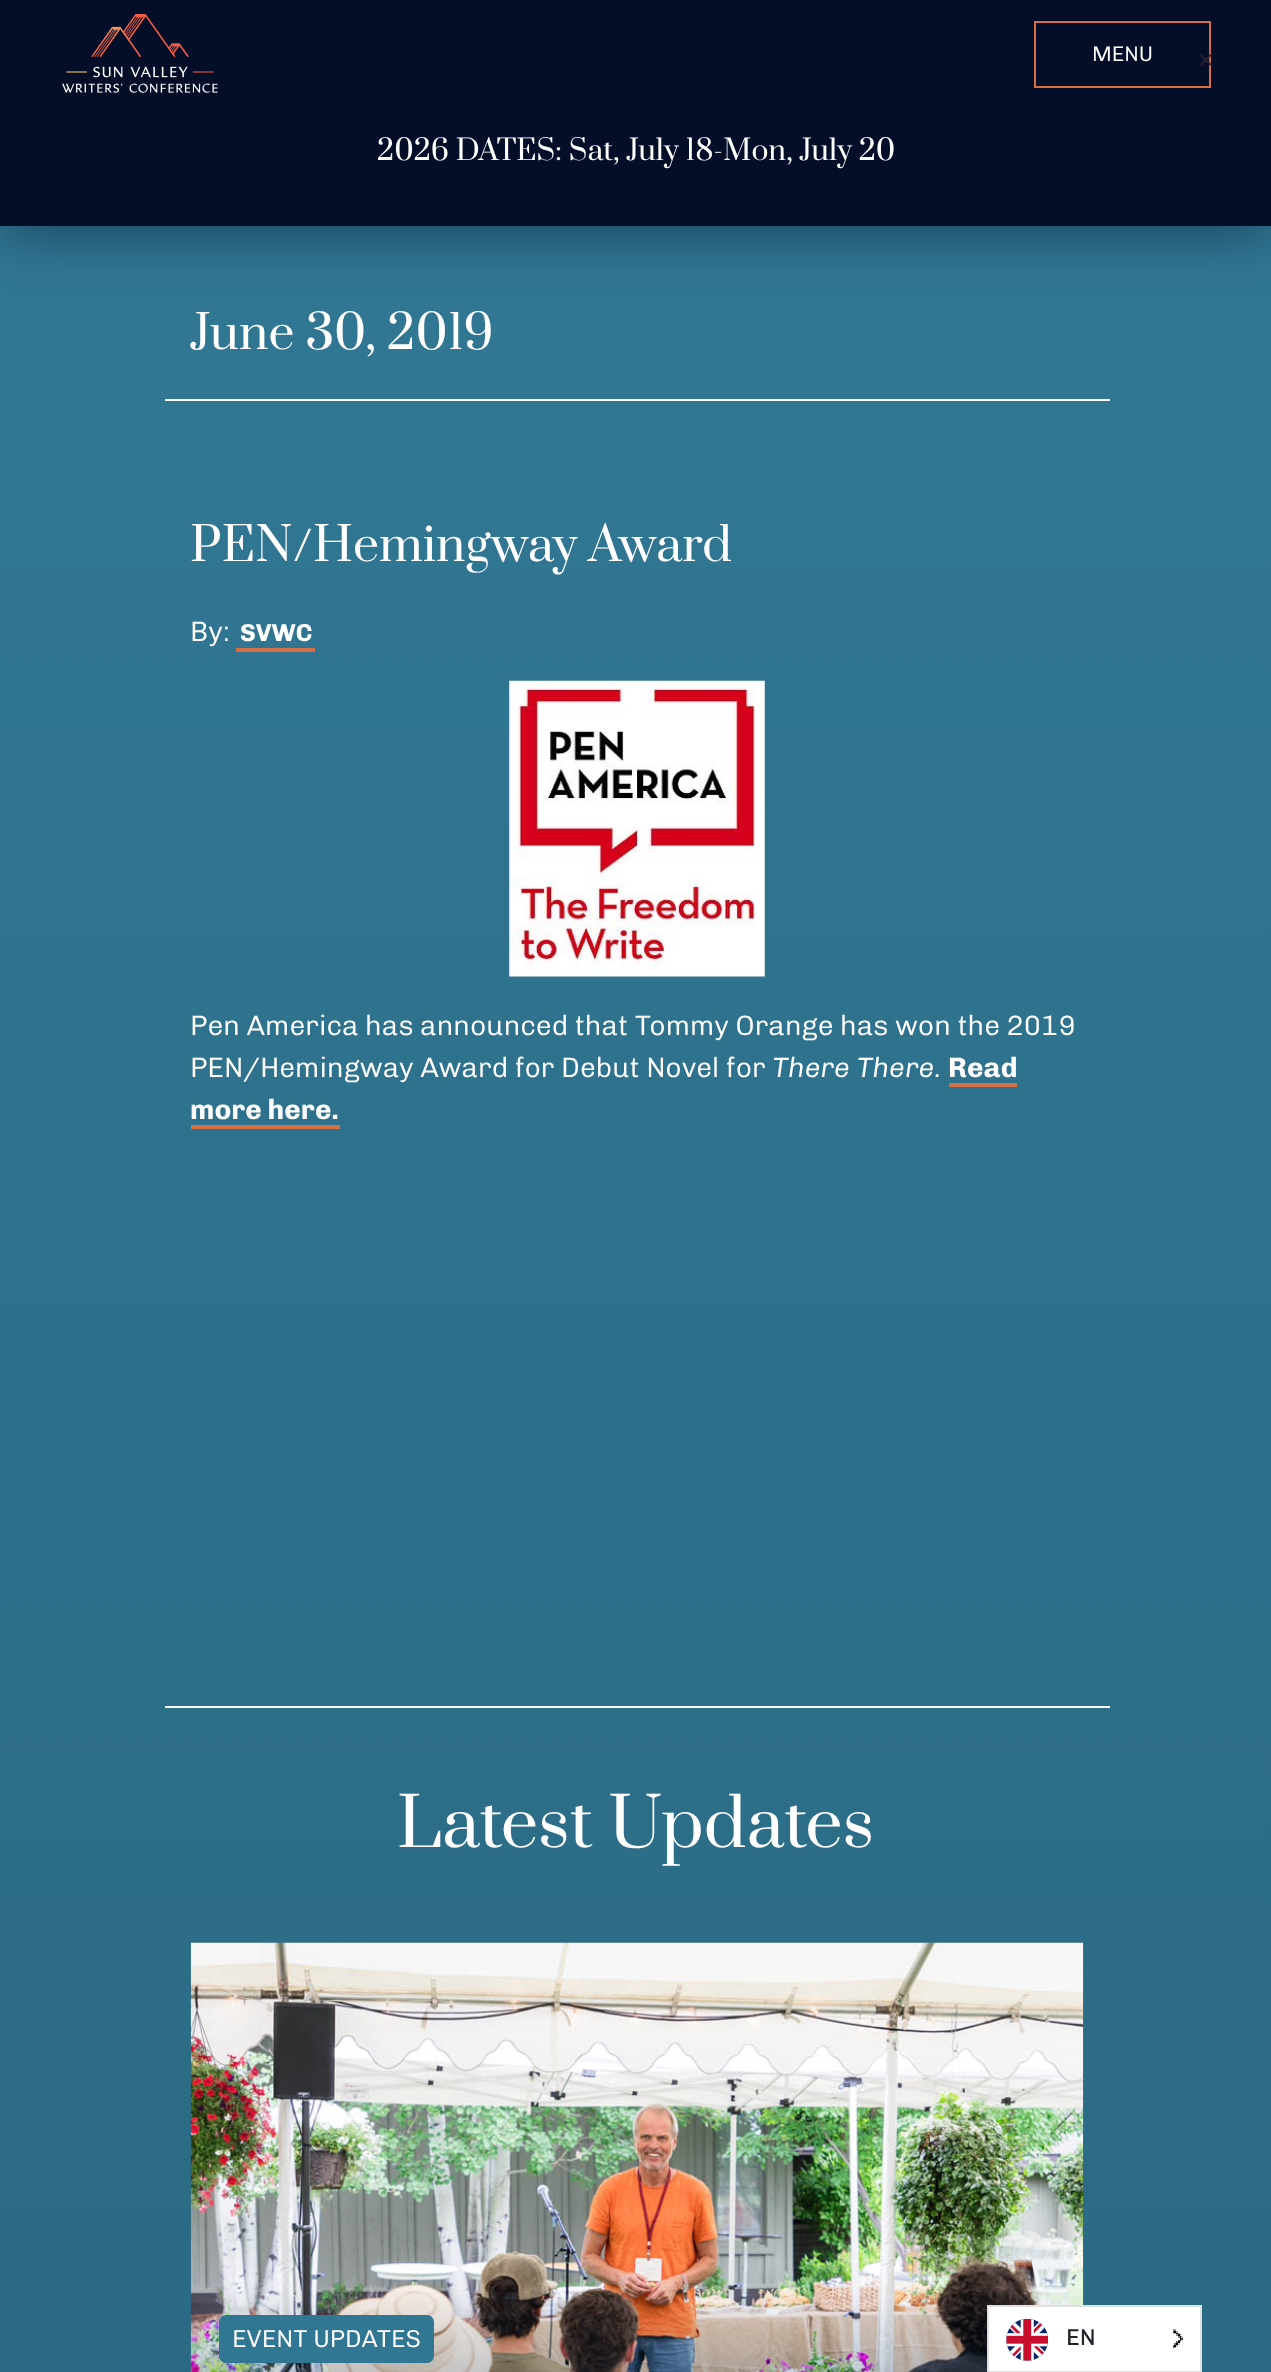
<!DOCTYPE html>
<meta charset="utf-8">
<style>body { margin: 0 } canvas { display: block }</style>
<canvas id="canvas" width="1271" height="2372"></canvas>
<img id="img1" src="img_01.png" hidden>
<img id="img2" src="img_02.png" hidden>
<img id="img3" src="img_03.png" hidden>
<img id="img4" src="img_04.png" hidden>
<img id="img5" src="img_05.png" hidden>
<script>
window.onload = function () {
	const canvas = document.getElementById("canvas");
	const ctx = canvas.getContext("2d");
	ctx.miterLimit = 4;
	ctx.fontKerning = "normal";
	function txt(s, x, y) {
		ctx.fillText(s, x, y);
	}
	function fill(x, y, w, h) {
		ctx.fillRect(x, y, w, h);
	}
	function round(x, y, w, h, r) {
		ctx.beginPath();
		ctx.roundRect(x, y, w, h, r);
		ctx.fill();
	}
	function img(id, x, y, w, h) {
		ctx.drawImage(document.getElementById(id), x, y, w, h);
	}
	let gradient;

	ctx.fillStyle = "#FFFFFF";
	fill(0, 0, 1271, 2372);
	ctx.fillStyle = "#040E29";
	fill(0, 0, 1271, 226);
	gradient = ctx.createLinearGradient(636, 226, 636, 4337);
	gradient.addColorStop(0, "#317794");
	gradient.addColorStop(1, "#265E76");
	ctx.fillStyle = gradient;
	fill(0, 226, 1271, 2146);
	ctx.save();
	ctx.beginPath();
	ctx.moveTo(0, 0);
	ctx.lineTo(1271, 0);
	ctx.lineTo(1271, 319);
	ctx.lineTo(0, 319);
	ctx.closePath();
	ctx.moveTo(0, 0);
	ctx.lineTo(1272, 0);
	ctx.lineTo(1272, 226);
	ctx.lineTo(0, 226);
	ctx.closePath();
	ctx.clip("evenodd");
	ctx.fillStyle = "rgba(2, 20, 44, 0.55)";
	ctx.filter = "blur(29px)";
	ctx.beginPath();
	ctx.rect(0, 5, 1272, 226);
	ctx.fill();
	ctx.filter = "none";
	ctx.restore();
	img("img1", 62, 14, 156, 79);
	ctx.strokeStyle = "#D67042";
	ctx.lineWidth = 2;
	ctx.strokeRect(1035, 22, 175, 65);
	ctx.fillStyle = "#FFFFFF";
	fill(165, 399, 945, 2);
	fill(165, 1706, 945, 2);
	ctx.fillStyle = "#D67042";
	fill(236, 648, 79, 4);
	img("img2", 509, 680, 256, 297);
	fill(949, 1083, 68, 4);
	fill(191, 1125, 149, 4);
	img("img3", 190, 1942, 894, 430);
	ctx.fillStyle = "#317794";
	round(219, 2315, 215, 48, 7);
	ctx.fillStyle = "#FFFFFF";
	ctx.beginPath();
	ctx.rect(988, 2306, 213, 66);
	ctx.fill();
	ctx.strokeStyle = "#E0E0E0";
	ctx.stroke();
	img("img4", 1006, 2319, 42, 42);
	img("img5", 1173, 2329, 10, 19);
	ctx.font = "300 21px Chivo";
	txt("MENU", 1092, 61);
	ctx.font = "28px Prata";
	txt("2026 DATES: Sat, July 18-Mon, July 20", 377, 160);
	ctx.font = "300 28px Chivo";
	ctx.fillStyle = "#2C202E";
	txt("×", 1197, 67);
	ctx.font = "46.25px Prata";
	ctx.fillStyle = "#FFFFFF";
	txt("June 30, 2019", 190, 349);
	txt("PEN/Hemingway Award", 190, 561);
	ctx.font = "300 28px Chivo";
	txt("By:", 190, 641);
	ctx.font = "bold 24.5px Chivo";
	txt("SVWC", 240, 641);
	ctx.font = "300 28px Chivo";
	txt("Pen America has announced that Tommy Orange has won the 2019", 190, 1035);
	txt("PEN/Hemingway Award for Debut Novel for", 190, 1077);
	ctx.font = "italic 300 28px Chivo";
	txt("There There.", 772, 1077);
	ctx.font = "bold 28px Chivo";
	txt("Read", 948, 1077);
	txt("more here.", 190, 1119);
	ctx.font = "66.5px Prata";
	txt("Latest Updates", 397, 1847);
	ctx.font = "300 24.5px Chivo";
	txt("EVENT UPDATES", 232, 2347);
	ctx.font = "23px Chivo";
	ctx.fillStyle = "#212529";
	txt("EN", 1066, 2345);
};
</script>
